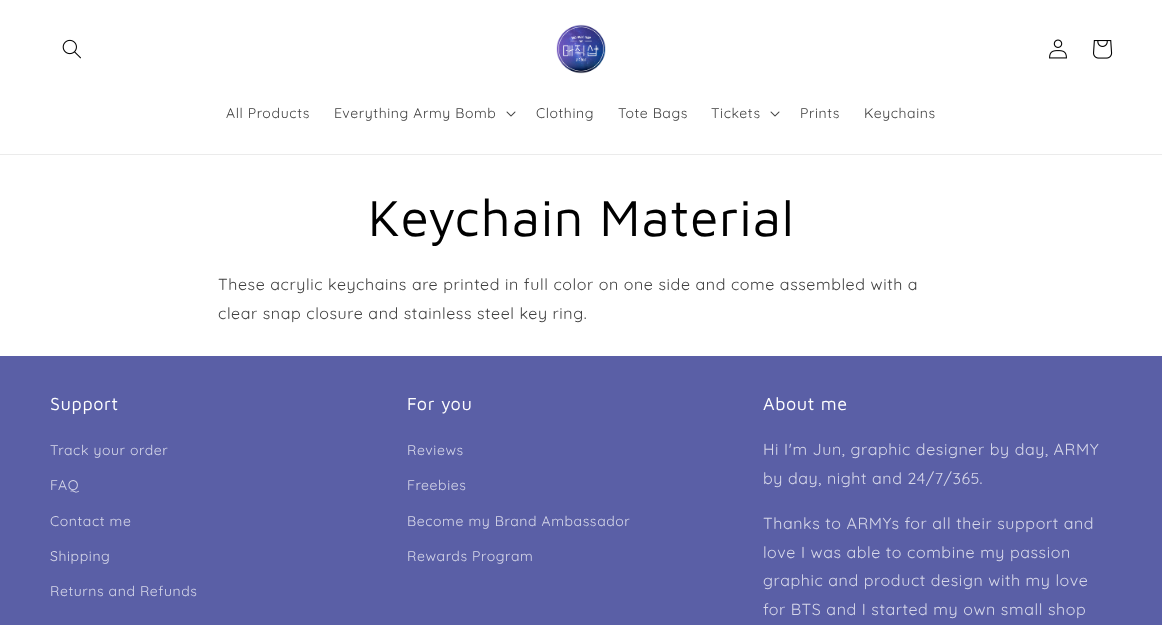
<!DOCTYPE html>
<meta charset="utf-8">
<style>body { margin: 0 } canvas { display: block }</style>
<canvas id="canvas" width="1162" height="625"></canvas>
<img id="img1" src="img_01.png" hidden>
<img id="img2" src="img_02.png" hidden>
<img id="img3" src="img_03.png" hidden>
<img id="img4" src="img_04.png" hidden>
<img id="img5" src="img_05.png" hidden>
<script>
window.onload = function () {
	const canvas = document.getElementById("canvas");
	const ctx = canvas.getContext("2d");
	ctx.miterLimit = 4;
	ctx.fontKerning = "normal";
	function txt(s, x, y) {
		ctx.fillText(s, x, y);
	}
	function fill(x, y, w, h) {
		ctx.fillRect(x, y, w, h);
	}
	function img(id, x, y, w, h) {
		ctx.drawImage(document.getElementById(id), x, y, w, h);
	}

	ctx.fillStyle = "#FFFFFF";
	fill(0, 0, 1162, 625);
	ctx.fillStyle = "#EBEBEB";
	fill(0, 154, 1162, 1);
	img("img1", 62, 39, 19, 20);
	img("img2", 556, 24, 50, 50);
	img("img3", 1049, 39, 18, 20);
	img("img4", 1093, 40, 20, 19);
	img("img5", 506, 111, 10, 6);
	img("img5", 770, 111, 10, 6);
	ctx.fillStyle = "#5A5FA6";
	fill(0, 356, 1162, 269);
	ctx.letterSpacing = "0.6px";
	ctx.font = "14px Quicksand";
	ctx.fillStyle = "#404040";
	txt("All Products", 226, 118);
	txt("Everything Army Bomb", 334, 118);
	txt("Clothing", 536, 118);
	txt("Tote Bags", 618, 118);
	txt("Tickets", 711, 118);
	txt("Prints", 800, 118);
	txt("Keychains", 864, 118);
	ctx.font = "52px Maven Pro";
	ctx.fillStyle = "#000000";
	txt("Keychain Material", 368, 236);
	ctx.font = "16px Quicksand";
	ctx.fillStyle = "#404040";
	txt("These acrylic keychains are printed in full color on one side and come assembled with a", 218, 290);
	txt("clear snap closure and stainless steel key ring.", 218, 319);
	ctx.font = "18px Maven Pro";
	ctx.fillStyle = "#FFFFFF";
	txt("Support", 50, 410);
	ctx.font = "14px Quicksand";
	ctx.fillStyle = "#D6D7E9";
	txt("Track your order", 50, 455);
	txt("FAQ", 50, 490);
	txt("Contact me", 50, 526);
	txt("Shipping", 50, 561);
	txt("Returns and Refunds", 50, 596);
	ctx.font = "18px Maven Pro";
	ctx.fillStyle = "#FFFFFF";
	txt("For you", 407, 410);
	ctx.font = "14px Quicksand";
	ctx.fillStyle = "#D6D7E9";
	txt("Reviews", 407, 455);
	txt("Freebies", 407, 490);
	txt("Become my Brand Ambassador", 407, 526);
	txt("Rewards Program", 407, 561);
	ctx.font = "18px Maven Pro";
	ctx.fillStyle = "#FFFFFF";
	txt("About me", 763, 410);
	ctx.font = "16px Quicksand";
	ctx.fillStyle = "#D6D7E9";
	txt("Hi I'm Jun, graphic designer by day, ARMY", 763, 455);
	txt("by day, night and 24/7/365.", 763, 484);
	txt("Thanks to ARMYs for all their support and", 763, 529);
	txt("love I was able to combine my passion", 763, 558);
	txt("graphic and product design with my love", 763, 586);
	txt("for BTS and I started my own small shop", 763, 615);
};
</script>
